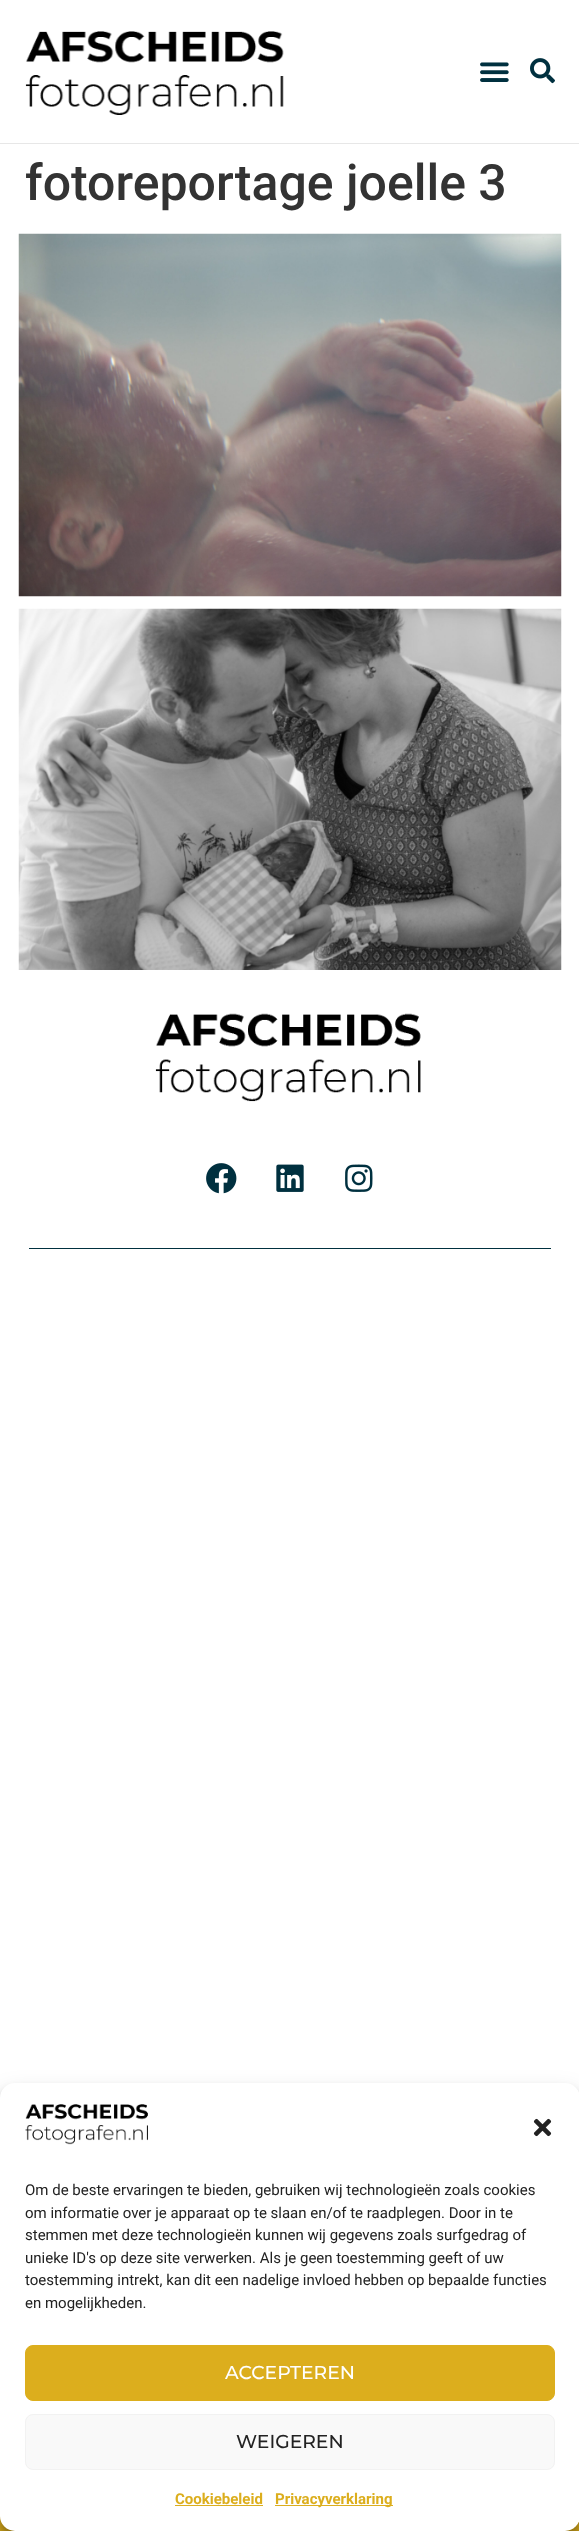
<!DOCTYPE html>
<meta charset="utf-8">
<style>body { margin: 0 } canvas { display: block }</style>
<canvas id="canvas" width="579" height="2531"></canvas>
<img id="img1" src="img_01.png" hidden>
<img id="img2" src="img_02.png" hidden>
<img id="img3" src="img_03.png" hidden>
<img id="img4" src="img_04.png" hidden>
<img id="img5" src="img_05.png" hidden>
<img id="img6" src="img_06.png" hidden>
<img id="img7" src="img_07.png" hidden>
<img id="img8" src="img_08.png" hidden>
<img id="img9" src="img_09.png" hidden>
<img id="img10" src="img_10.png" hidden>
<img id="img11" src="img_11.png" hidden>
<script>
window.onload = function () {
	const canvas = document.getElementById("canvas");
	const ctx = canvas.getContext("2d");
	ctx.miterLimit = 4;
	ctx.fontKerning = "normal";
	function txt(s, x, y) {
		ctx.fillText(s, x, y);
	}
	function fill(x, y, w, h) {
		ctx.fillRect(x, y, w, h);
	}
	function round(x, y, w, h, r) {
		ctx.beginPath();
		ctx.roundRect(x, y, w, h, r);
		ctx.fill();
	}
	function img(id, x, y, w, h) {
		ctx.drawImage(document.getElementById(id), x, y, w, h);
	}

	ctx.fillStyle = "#FFFFFF";
	fill(0, 0, 579, 2531);
	ctx.fillStyle = "#E7E7E7";
	fill(0, 143, 579, 1);
	img("img1", 25, 31, 259, 84);
	img("img2", 480, 62, 29, 20);
	img("img3", 530, 58, 25, 26);
	img("img4", 18, 233, 544, 364);
	img("img5", 18, 608, 544, 362);
	img("img6", 155, 1013, 266, 89);
	img("img7", 206, 1163, 31, 31);
	img("img8", 276, 1164, 28, 28);
	img("img9", 345, 1164, 28, 28);
	ctx.fillStyle = "#00303F";
	fill(29, 1248, 522, 1);
	ctx.fillStyle = "#DCAE1D";
	fill(0, 2516, 579, 15);
	ctx.fillStyle = "rgba(0, 0, 0, 0.23)";
	ctx.filter = "blur(4px)";
	ctx.beginPath();
	ctx.roundRect(0, 2090, 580, 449, 15);
	ctx.fill();
	ctx.filter = "none";
	ctx.fillStyle = "rgba(0, 0, 0, 0.19)";
	ctx.filter = "blur(12.5px)";
	ctx.beginPath();
	ctx.roundRect(0, 2095, 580, 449, 15);
	ctx.fill();
	ctx.filter = "none";
	ctx.fillStyle = "#FFFFFF";
	round(0, 2083, 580, 448, 15);
	img("img10", 25, 2104, 123, 41);
	img("img11", 533, 2118, 19, 19);
	ctx.fillStyle = "#DCAE1D";
	ctx.beginPath();
	ctx.roundRect(25.5, 2345.5, 529, 55, 7.5);
	ctx.fill();
	ctx.strokeStyle = "#DCAE1D";
	ctx.stroke();
	ctx.fillStyle = "#F9F9F9";
	ctx.beginPath();
	ctx.roundRect(25.5, 2414.5, 529, 55, 7.5);
	ctx.fill();
	ctx.strokeStyle = "#F2F2F2";
	ctx.stroke();
	ctx.fillStyle = "#DCAE1D";
	fill(175, 2505, 88, 1);
	fill(275, 2505, 118, 1);
	ctx.font = "500 50px Roboto";
	ctx.fillStyle = "#333333";
	txt("fotoreportage joelle 3", 25, 200);
	ctx.font = "15px Roboto";
	ctx.fillStyle = "#222222";
	txt("Om de beste ervaringen te bieden, gebruiken wij technologieën zoals cookies", 25, 2195);
	txt("om informatie over je apparaat op te slaan en/of te raadplegen. Door in te", 25, 2218);
	txt("stemmen met deze technologieën kunnen wij gegevens zoals surfgedrag of", 25, 2240);
	txt("unieke ID's op deze site verwerken. Als je geen toestemming geeft of uw", 25, 2263);
	txt("toestemming intrekt, kan dit een nadelige invloed hebben op bepaalde functies", 25, 2285);
	txt("en mogelijkheden.", 25, 2308);
	ctx.font = "500 18.75px Montserrat";
	ctx.fillStyle = "#FFFFFF";
	txt("ACCEPTEREN", 225, 2379);
	ctx.fillStyle = "#222222";
	txt("WEIGEREN", 236, 2448);
	ctx.font = "bold 15px Roboto";
	ctx.fillStyle = "#DCAE1D";
	txt("Cookiebeleid", 175, 2504);
	txt("Privacyverklaring", 275, 2504);
};
</script>
